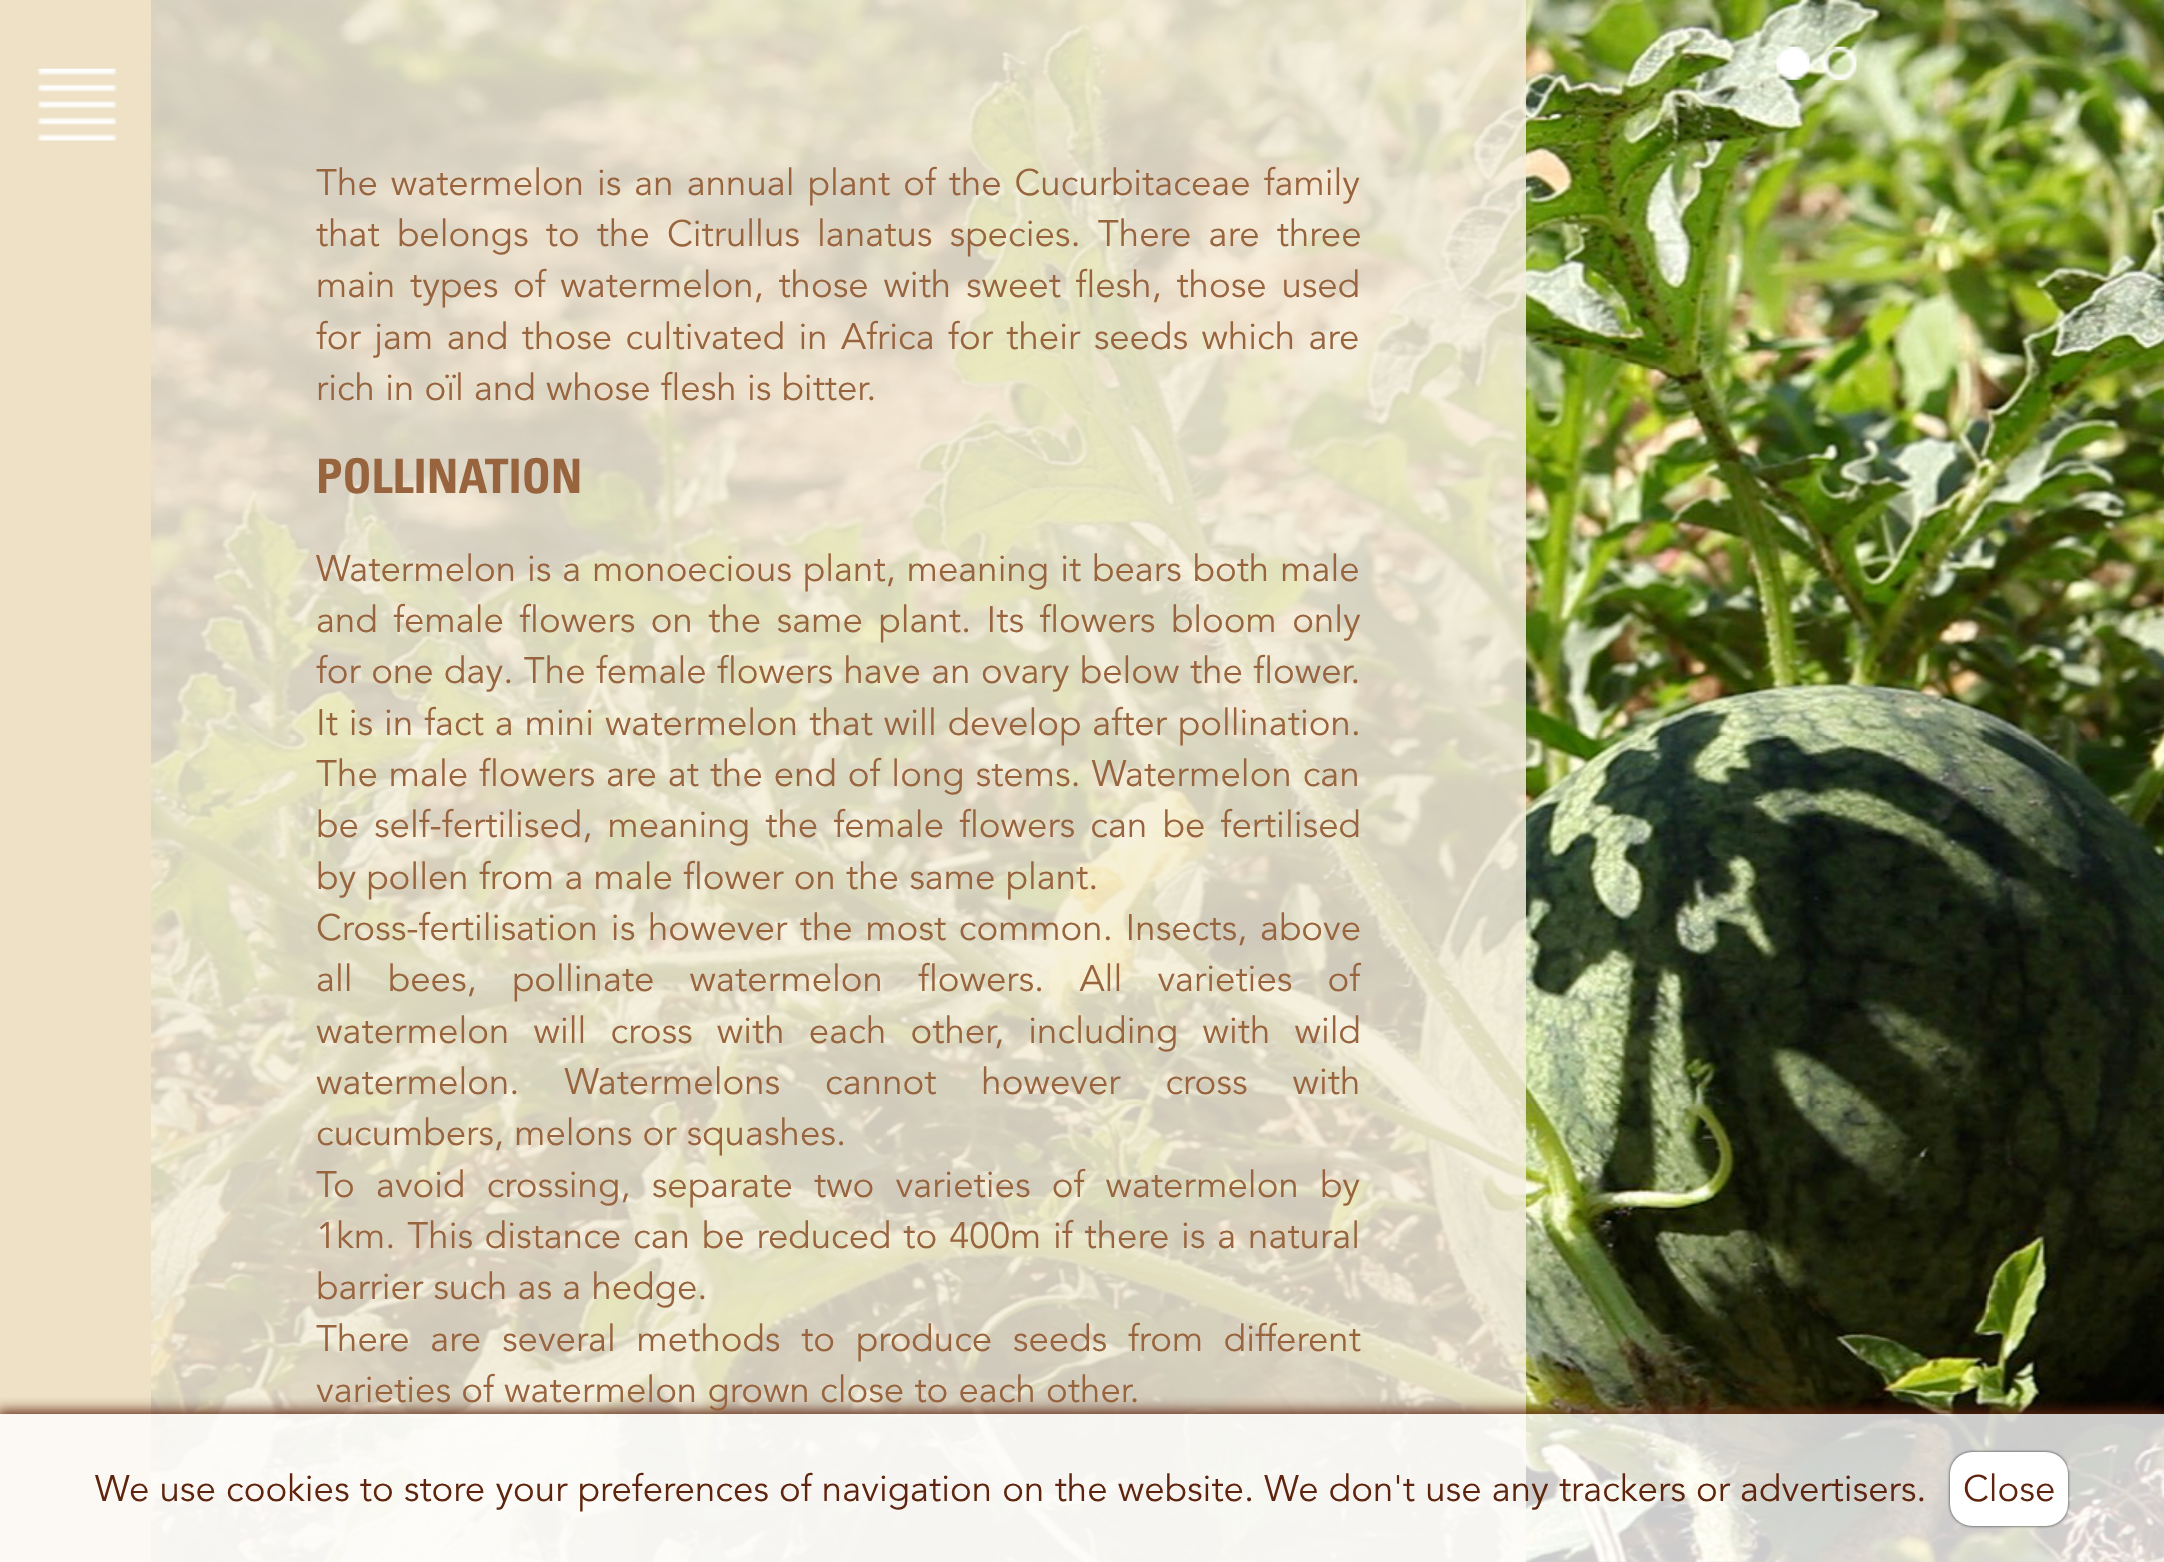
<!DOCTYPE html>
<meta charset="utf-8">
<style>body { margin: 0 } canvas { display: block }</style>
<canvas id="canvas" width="2164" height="1562"></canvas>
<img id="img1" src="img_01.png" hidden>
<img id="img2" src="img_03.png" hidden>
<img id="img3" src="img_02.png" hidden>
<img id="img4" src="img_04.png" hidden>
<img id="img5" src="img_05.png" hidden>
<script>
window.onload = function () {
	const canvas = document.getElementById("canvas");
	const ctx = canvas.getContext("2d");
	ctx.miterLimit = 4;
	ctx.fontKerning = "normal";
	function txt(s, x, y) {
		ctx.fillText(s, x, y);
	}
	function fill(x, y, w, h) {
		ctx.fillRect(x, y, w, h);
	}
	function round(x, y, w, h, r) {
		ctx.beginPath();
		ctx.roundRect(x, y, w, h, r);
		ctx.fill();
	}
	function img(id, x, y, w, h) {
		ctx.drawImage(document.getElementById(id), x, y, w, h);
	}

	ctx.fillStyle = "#FFFFFF";
	fill(0, 0, 2164, 1562);
	ctx.fillStyle = "#EEE1C6";
	fill(0, 0, 151, 1562);
	img("img1", 37, 68, 80, 73);
	img("img2", 151, 1561, 2013, 1);
	img("img3", 151, 0, 2013, 1562);
	ctx.fillStyle = "rgba(245, 237, 221, 0.85)";
	fill(151, 0, 1375, 1562);
	img("img4", 1776, 46, 34, 34);
	img("img5", 1823, 46, 34, 34);
	ctx.save();
	ctx.beginPath();
	ctx.rect(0, 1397, 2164, 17);
	ctx.clip();
	ctx.fillStyle = "#5E240D";
	ctx.filter = "blur(7px)";
	ctx.beginPath();
	ctx.rect(-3, 1411, 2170, 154);
	ctx.fill();
	ctx.filter = "none";
	ctx.restore();
	ctx.fillStyle = "rgba(255, 255, 255, 0.8)";
	fill(0, 1414, 2164, 148);
	ctx.fillStyle = "#333333";
	ctx.filter = "blur(1.5px)";
	ctx.beginPath();
	ctx.roundRect(1950, 1452, 118, 74, 22);
	ctx.fill();
	ctx.filter = "none";
	ctx.fillStyle = "#FFFFFF";
	round(1950, 1452, 118, 74, 22);
	ctx.wordSpacing = "2.75px";
	ctx.font = "36.65px Avenir";
	ctx.fillStyle = "#98643E";
	txt("The watermelon is an annual plant of the Cucurbitaceae family", 316, 195);
	ctx.wordSpacing = "7px";
	txt("that belongs to the Citrullus lanatus species. There are three", 316, 246);
	ctx.wordSpacing = "4.5px";
	txt("main types of watermelon, those with sweet flesh, those used", 316, 297);
	ctx.wordSpacing = "3.25px";
	txt("for jam and those cultivated in Africa for their seeds which are", 316, 349);
	ctx.wordSpacing = "0px";
	txt("rich in oïl and whose flesh is bitter.", 316, 400);
	ctx.font = "bold 47.5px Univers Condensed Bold";
	txt("POLLINATION", 316, 493);
	ctx.wordSpacing = "0.75px";
	ctx.font = "36.65px Avenir";
	txt("Watermelon is a monoecious plant, meaning it bears both male", 316, 581);
	ctx.wordSpacing = "5.25px";
	txt("and female flowers on the same plant. Its flowers bloom only", 316, 632);
	ctx.wordSpacing = "0.25px";
	txt("for one day. The female flowers have an ovary below the flower.", 316, 683);
	ctx.wordSpacing = "0.75px";
	txt("It is in fact a mini watermelon that will develop after pollination.", 316, 735);
	txt("The male flowers are at the end of long stems. Watermelon can", 316, 786);
	ctx.wordSpacing = "5px";
	txt("be self-fertilised, meaning the female flowers can be fertilised", 316, 837);
	ctx.wordSpacing = "0px";
	txt("by pollen from a male flower on the same plant.", 316, 889);
	ctx.wordSpacing = "2.5px";
	txt("Cross-fertilisation is however the most common. Insects, above", 316, 940);
	ctx.wordSpacing = "25px";
	txt("all bees, pollinate watermelon flowers. All varieties of", 316, 991);
	ctx.wordSpacing = "14px";
	txt("watermelon will cross with each other, including with wild", 316, 1043);
	ctx.wordSpacing = "34.75px";
	txt("watermelon. Watermelons cannot however cross with", 316, 1094);
	ctx.wordSpacing = "0px";
	txt("cucumbers, melons or squashes.", 316, 1145);
	ctx.wordSpacing = "11px";
	txt("To avoid crossing, separate two varieties of watermelon by", 316, 1197);
	ctx.wordSpacing = "1.6px";
	txt("1km. This distance can be reduced to 400m if there is a natural", 316, 1248);
	ctx.wordSpacing = "0px";
	txt("barrier such as a hedge.", 316, 1299);
	ctx.wordSpacing = "10.5px";
	txt("There are several methods to produce seeds from different", 316, 1351);
	ctx.wordSpacing = "0px";
	txt("varieties of watermelon grown close to each other.", 316, 1402);
	ctx.fillStyle = "#5E240D";
	txt("We use cookies to store your preferences of navigation on the website. We don't use any trackers or advertisers.", 95, 1501);
	txt("Close", 1963, 1501);
};
</script>
